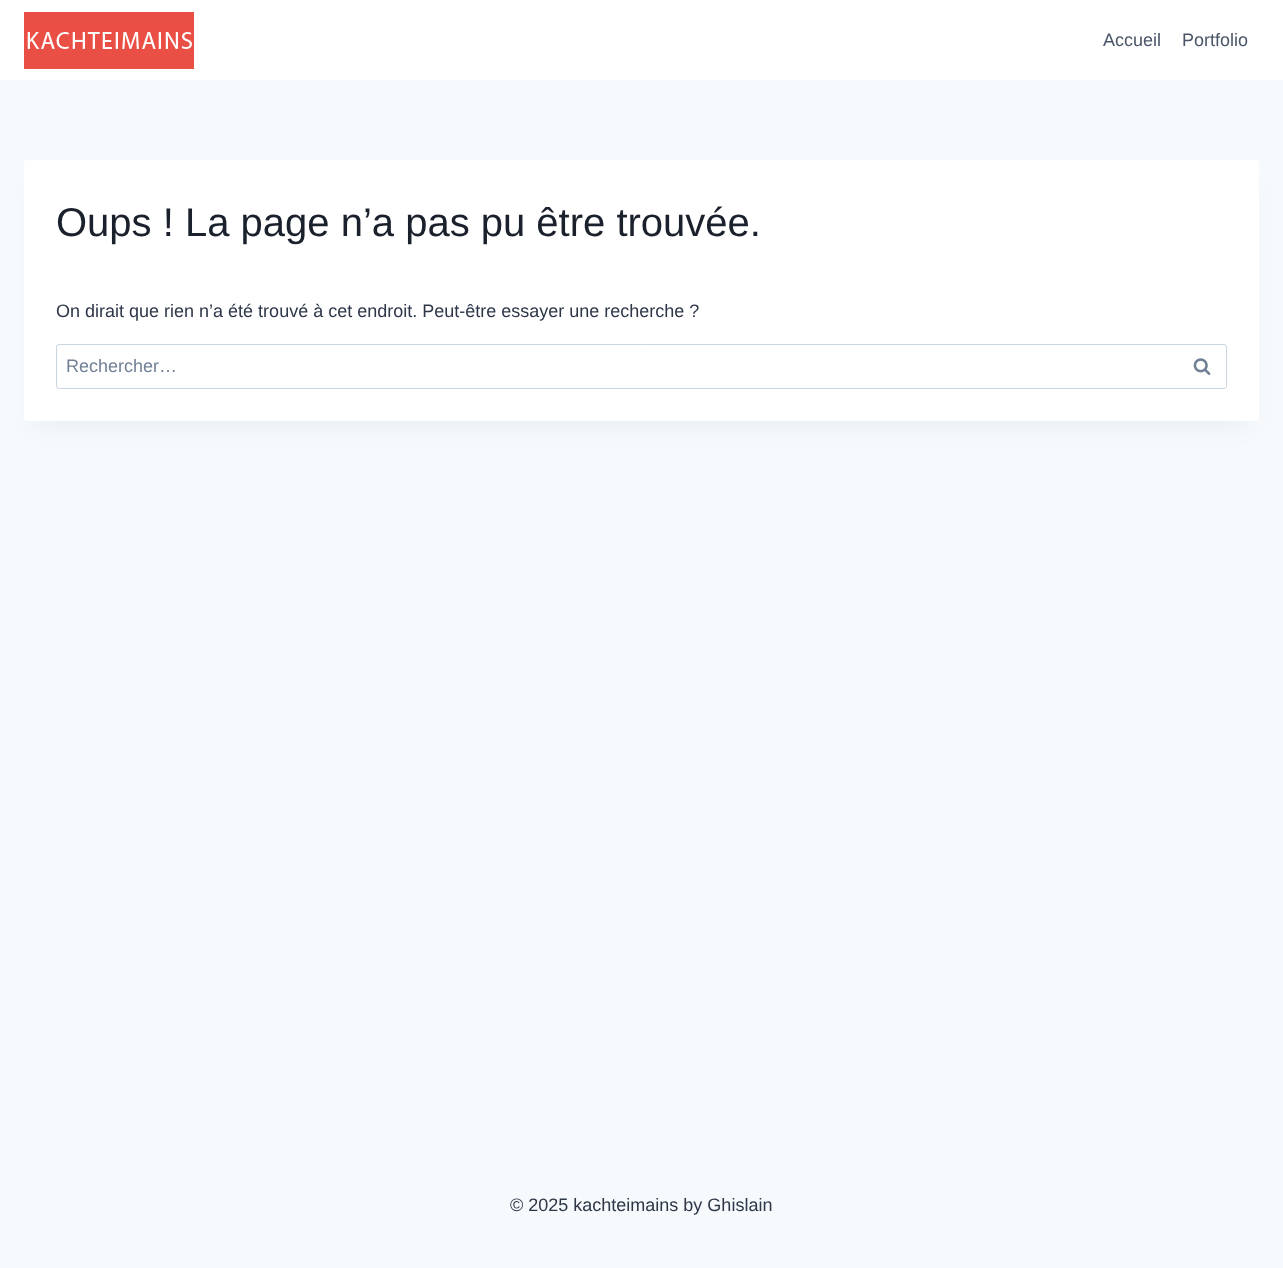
<!DOCTYPE html>
<meta charset="utf-8">
<style>body { margin: 0 } canvas { display: block }</style>
<canvas id="canvas" width="1283" height="1268"></canvas>
<img id="img1" src="img_01.png" hidden>
<img id="img2" src="img_02.png" hidden>
<script>
window.onload = function () {
	const canvas = document.getElementById("canvas");
	const ctx = canvas.getContext("2d");
	ctx.miterLimit = 4;
	ctx.fontKerning = "normal";
	function txt(s, x, y) {
		ctx.fillText(s, x, y);
	}
	function fill(x, y, w, h) {
		ctx.fillRect(x, y, w, h);
	}
	function round(x, y, w, h, r) {
		ctx.beginPath();
		ctx.roundRect(x, y, w, h, r);
		ctx.fill();
	}
	function img(id, x, y, w, h) {
		ctx.drawImage(document.getElementById(id), x, y, w, h);
	}

	ctx.fillStyle = "#F7FAFC";
	fill(0, 0, 1283, 1268);
	ctx.fillStyle = "#FFFFFF";
	fill(0, 0, 1283, 80);
	img("img1", 24, 12, 170, 57);
	ctx.fillStyle = "rgba(0, 0, 0, 0.05)";
	ctx.filter = "blur(12.5px)";
	ctx.beginPath();
	ctx.rect(34, 185, 1215, 241);
	ctx.fill();
	ctx.filter = "none";
	ctx.fillStyle = "#FFFFFF";
	round(24, 160, 1235, 261, 4);
	ctx.beginPath();
	ctx.roundRect(56.5, 344.5, 1170, 44, 2.5);
	ctx.strokeStyle = "#CBD5E0";
	ctx.stroke();
	img("img2", 1193, 358, 18, 17);
	ctx.font = "18px Liberation Sans";
	ctx.fillStyle = "#4A5568";
	txt("Accueil", 1103, 46);
	txt("Portfolio", 1182, 46);
	ctx.font = "40px Liberation Sans";
	ctx.fillStyle = "#1A202C";
	txt("Oups ! La page n’a pas pu être trouvée.", 56, 236);
	ctx.font = "18px Liberation Sans";
	ctx.fillStyle = "#2D3748";
	txt("On dirait que rien n’a été trouvé à cet endroit. Peut-être essayer une recherche ?", 56, 317);
	ctx.fillStyle = "#718096";
	txt("Rechercher…", 66, 372);
	ctx.fillStyle = "#2D3748";
	txt("© 2025 kachteimains by Ghislain", 510, 1211);
};
</script>
